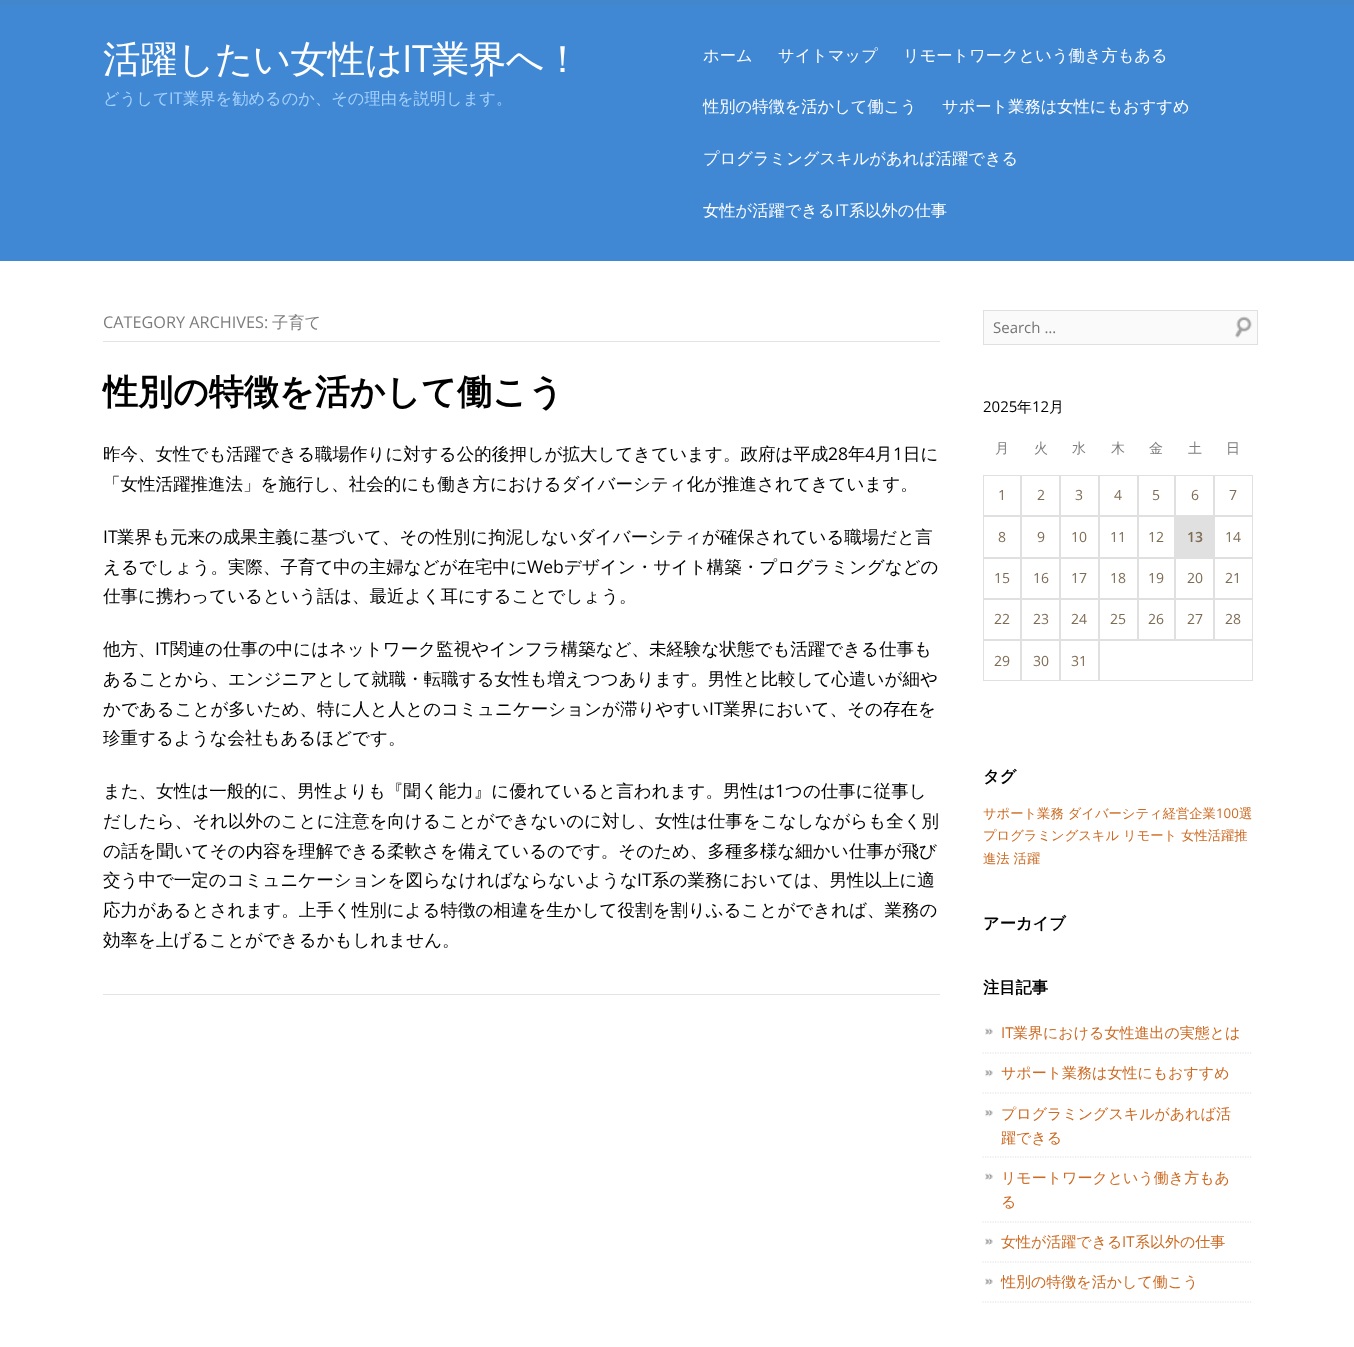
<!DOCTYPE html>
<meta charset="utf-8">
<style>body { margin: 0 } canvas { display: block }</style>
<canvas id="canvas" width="1354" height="1347"></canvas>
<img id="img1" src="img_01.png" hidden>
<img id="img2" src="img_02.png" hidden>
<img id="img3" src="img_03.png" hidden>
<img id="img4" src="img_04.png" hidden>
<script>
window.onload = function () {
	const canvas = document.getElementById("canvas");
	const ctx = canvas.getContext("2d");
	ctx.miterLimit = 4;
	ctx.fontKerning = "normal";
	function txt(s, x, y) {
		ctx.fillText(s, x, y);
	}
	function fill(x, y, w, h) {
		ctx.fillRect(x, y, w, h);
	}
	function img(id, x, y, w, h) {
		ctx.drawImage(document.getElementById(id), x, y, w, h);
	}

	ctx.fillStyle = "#4188D4";
	fill(0, 0, 1354, 1347);
	ctx.fillStyle = "#4286CC";
	fill(0, 0, 1354, 5);
	ctx.fillStyle = "#FFFFFF";
	fill(0, 261, 1354, 1086);
	ctx.fillStyle = "#E3E3E3";
	fill(103, 341, 837, 1);
	fill(103, 994, 837, 1);
	ctx.fillStyle = "rgba(0, 0, 0, 0.2)";
	ctx.filter = "blur(0.5px)";
	ctx.beginPath();
	ctx.rect(983, 310, 275, 35);
	ctx.fill();
	ctx.filter = "none";
	ctx.fillStyle = "#FAFAFA";
	fill(984, 311, 273, 33);
	img("img1", 1235, 316, 17, 22);
	ctx.strokeStyle = "#E0E0E0";
	ctx.strokeRect(983.5, 310.5, 274, 34);
	ctx.strokeRect(983.5, 475.5, 37, 40);
	ctx.strokeRect(1021.5, 475.5, 38, 40);
	ctx.strokeRect(1060.5, 475.5, 38, 40);
	ctx.strokeRect(1099.5, 475.5, 38, 40);
	ctx.strokeRect(1138.5, 475.5, 36, 40);
	ctx.strokeRect(1175.5, 475.5, 38, 40);
	ctx.strokeRect(1214.5, 475.5, 38, 40);
	ctx.strokeRect(983.5, 516.5, 37, 41);
	ctx.strokeRect(1021.5, 516.5, 38, 41);
	ctx.strokeRect(1060.5, 516.5, 38, 41);
	ctx.strokeRect(1099.5, 516.5, 38, 41);
	ctx.strokeRect(1138.5, 516.5, 36, 41);
	ctx.fillStyle = "#E0E0E0";
	fill(1175, 516, 39, 42);
	ctx.strokeRect(1214.5, 516.5, 38, 41);
	ctx.strokeRect(983.5, 558.5, 37, 40);
	ctx.strokeRect(1021.5, 558.5, 38, 40);
	ctx.strokeRect(1060.5, 558.5, 38, 40);
	ctx.strokeRect(1099.5, 558.5, 38, 40);
	ctx.strokeRect(1138.5, 558.5, 36, 40);
	ctx.strokeRect(1175.5, 558.5, 38, 40);
	ctx.strokeRect(1214.5, 558.5, 38, 40);
	ctx.strokeRect(983.5, 599.5, 37, 40);
	ctx.strokeRect(1021.5, 599.5, 38, 40);
	ctx.strokeRect(1060.5, 599.5, 38, 40);
	ctx.strokeRect(1099.5, 599.5, 38, 40);
	ctx.strokeRect(1138.5, 599.5, 36, 40);
	ctx.strokeRect(1175.5, 599.5, 38, 40);
	ctx.strokeRect(1214.5, 599.5, 38, 40);
	ctx.strokeRect(983.5, 640.5, 37, 40);
	ctx.strokeRect(1021.5, 640.5, 38, 40);
	ctx.strokeRect(1060.5, 640.5, 38, 40);
	ctx.strokeRect(1099.5, 640.5, 153, 40);
	img("img2", 985, 1028, 8, 7);
	ctx.beginPath();
	ctx.moveTo(982.5, 1053);
	ctx.lineTo(1252.5, 1053);
	ctx.lineWidth = 1.2;
	ctx.setLineDash([1.25, 1.25]);
	ctx.stroke();
	img("img3", 985, 1070, 8, 7);
	ctx.beginPath();
	ctx.moveTo(982.5, 1093);
	ctx.lineTo(1252.5, 1093);
	ctx.stroke();
	img("img3", 985, 1110, 8, 7);
	ctx.beginPath();
	ctx.moveTo(982.5, 1157);
	ctx.lineTo(1252.5, 1157);
	ctx.stroke();
	img("img4", 985, 1173, 8, 7);
	ctx.beginPath();
	ctx.moveTo(982.5, 1222);
	ctx.lineTo(1252.5, 1222);
	ctx.stroke();
	img("img2", 985, 1238, 8, 7);
	ctx.beginPath();
	ctx.moveTo(982.5, 1262);
	ctx.lineTo(1252.5, 1262);
	ctx.stroke();
	img("img2", 985, 1278, 8, 7);
	ctx.beginPath();
	ctx.moveTo(982.5, 1302);
	ctx.lineTo(1252.5, 1302);
	ctx.stroke();
	ctx.letterSpacing = "-0.5px";
	ctx.font = "500 37.5px WenQuanYi Zen Hei";
	ctx.fillStyle = "#FFFFFF";
	txt("活躍したい女性は", 103, 72);
	ctx.font = "37.5px Open Sans";
	txt("IT", 402, 72);
	ctx.font = "500 37.5px WenQuanYi Zen Hei";
	txt("業界へ！", 432, 72);
	ctx.letterSpacing = "0px";
	ctx.font = "500 16.25px WenQuanYi Zen Hei";
	ctx.fillStyle = "#A7D2FF";
	txt("どうして", 103, 104);
	ctx.font = "16.25px Open Sans";
	txt("IT", 169, 104);
	ctx.font = "500 16.25px WenQuanYi Zen Hei";
	txt("業界を勧めるのか、その理由を説明します。", 183, 104);
	ctx.fillStyle = "#FFFFFF";
	txt("ホーム", 703, 61);
	txt("サイトマップ", 778, 61);
	txt("リモートワークという働き方もある", 903, 61);
	txt("性別の特徴を活かして働こう", 703, 112);
	txt("サポート業務は女性にもおすすめ", 942, 112);
	txt("プログラミングスキルがあれば活躍できる", 703, 164);
	txt("女性が活躍できる", 703, 216);
	ctx.font = "16.25px Open Sans";
	txt("IT", 835, 216);
	ctx.font = "500 16.25px WenQuanYi Zen Hei";
	txt("系以外の仕事", 849, 216);
	ctx.font = "16.25px Open Sans";
	ctx.fillStyle = "#7D7D7D";
	txt("CATEGORY ARCHIVES:", 103, 328);
	ctx.font = "500 16.25px WenQuanYi Zen Hei";
	txt("子育て", 272, 328);
	ctx.font = "bold 35px WenQuanYi Zen Hei";
	ctx.fillStyle = "#000000";
	txt("性別の特徴を活かして働こう", 103, 404);
	ctx.font = "500 17.5px WenQuanYi Zen Hei";
	txt("昨今、女性でも活躍できる職場作りに対する公的後押しが拡大してきています。政府は平成", 103, 460);
	ctx.font = "17.5px Open Sans";
	txt("28", 828, 460);
	ctx.font = "500 17.5px WenQuanYi Zen Hei";
	txt("年", 848, 460);
	ctx.font = "17.5px Open Sans";
	txt("4", 865, 460);
	ctx.font = "500 17.5px WenQuanYi Zen Hei";
	txt("月", 875, 460);
	ctx.font = "17.5px Open Sans";
	txt("1", 893, 460);
	ctx.font = "500 17.5px WenQuanYi Zen Hei";
	txt("日に", 903, 460);
	txt("「女性活躍推進法」を施行し、社会的にも働き方におけるダイバーシティ化が推進されてきています。", 103, 490);
	ctx.font = "17.5px Open Sans";
	txt("IT", 103, 543);
	ctx.font = "500 17.5px WenQuanYi Zen Hei";
	txt("業界も元来の成果主義に基づいて、その性別に拘泥しないダイバーシティが確保されている職場だと言", 117, 543);
	txt("えるでしょう。実際、子育て中の主婦などが在宅中に", 103, 573);
	ctx.font = "17.5px Open Sans";
	txt("Web", 527, 573);
	ctx.font = "500 17.5px WenQuanYi Zen Hei";
	txt("デザイン・サイト構築・プログラミングなどの", 564, 573);
	txt("仕事に携わっているという話は、最近よく耳にすることでしょう。", 103, 602);
	txt("他方、", 103, 655);
	ctx.font = "17.5px Open Sans";
	txt("IT", 155, 655);
	ctx.font = "500 17.5px WenQuanYi Zen Hei";
	txt("関連の仕事の中にはネットワーク監視やインフラ構築など、未経験な状態でも活躍できる仕事も", 170, 655);
	txt("あることから、エンジニアとして就職・転職する女性も増えつつあります。男性と比較して心遣いが細や", 103, 685);
	txt("かであることが多いため、特に人と人とのコミュニケーションが滞りやすい", 103, 715);
	ctx.font = "17.5px Open Sans";
	txt("IT", 709, 715);
	ctx.font = "500 17.5px WenQuanYi Zen Hei";
	txt("業界において、その存在を", 723, 715);
	txt("珍重するような会社もあるほどです。", 103, 744);
	txt("また、女性は一般的に、男性よりも『聞く能力』に優れていると言われます。男性は", 103, 797);
	ctx.font = "17.5px Open Sans";
	txt("1", 775, 797);
	ctx.font = "500 17.5px WenQuanYi Zen Hei";
	txt("つの仕事に従事し", 785, 797);
	txt("だしたら、それ以外のことに注意を向けることができないのに対し、女性は仕事をこなしながらも全く別", 103, 827);
	txt("の話を聞いてその内容を理解できる柔軟さを備えているのです。そのため、多種多様な細かい仕事が飛び", 103, 857);
	txt("交う中で一定のコミュニケーションを図らなければならないような", 103, 886);
	ctx.font = "17.5px Open Sans";
	txt("IT", 637, 886);
	ctx.font = "500 17.5px WenQuanYi Zen Hei";
	txt("系の業務においては、男性以上に適", 652, 886);
	txt("応力があるとされます。上手く性別による特徴の相違を生かして役割を割りふることができれば、業務の", 103, 916);
	txt("効率を上げることができるかもしれません。", 103, 946);
	ctx.font = "15px Open Sans";
	ctx.fillStyle = "#757575";
	txt("Search …", 993, 333);
	ctx.fillStyle = "#000000";
	txt("2025", 983, 412);
	ctx.font = "500 15px WenQuanYi Zen Hei";
	txt("年", 1017, 412);
	ctx.font = "15px Open Sans";
	txt("12", 1032, 412);
	ctx.font = "500 15px WenQuanYi Zen Hei";
	txt("月", 1049, 412);
	ctx.font = "500 14px WenQuanYi Zen Hei";
	ctx.fillStyle = "#7D7D7D";
	txt("月", 995, 453);
	txt("火", 1034, 453);
	txt("水", 1072, 453);
	txt("木", 1111, 453);
	txt("金", 1149, 453);
	txt("土", 1188, 453);
	txt("日", 1226, 453);
	ctx.font = "14px Open Sans";
	ctx.fillStyle = "#7E6B54";
	txt("1", 998, 500);
	txt("2", 1037, 500);
	txt("3", 1075, 500);
	txt("4", 1114, 500);
	txt("5", 1152, 500);
	txt("6", 1191, 500);
	txt("7", 1229, 500);
	txt("8", 998, 542);
	txt("9", 1037, 542);
	txt("10", 1071, 542);
	txt("11", 1110, 542);
	txt("12", 1148, 542);
	ctx.font = "600 14px Open Sans";
	txt("13", 1187, 542);
	ctx.font = "14px Open Sans";
	txt("14", 1225, 542);
	txt("15", 994, 583);
	txt("16", 1033, 583);
	txt("17", 1071, 583);
	txt("18", 1110, 583);
	txt("19", 1148, 583);
	txt("20", 1187, 583);
	txt("21", 1225, 583);
	txt("22", 994, 624);
	txt("23", 1033, 624);
	txt("24", 1071, 624);
	txt("25", 1110, 624);
	txt("26", 1148, 624);
	txt("27", 1187, 624);
	txt("28", 1225, 624);
	txt("29", 994, 666);
	txt("30", 1033, 666);
	txt("31", 1071, 666);
	ctx.font = "bold 16.25px WenQuanYi Zen Hei";
	ctx.fillStyle = "#000000";
	txt("タグ", 983, 782);
	ctx.font = "500 13.3px WenQuanYi Zen Hei";
	ctx.fillStyle = "#CC6A22";
	txt("サポート業務 ダイバーシティ経営企業", 983, 818);
	ctx.font = "13.3px Open Sans";
	txt("100", 1216, 818);
	ctx.font = "500 13.3px WenQuanYi Zen Hei";
	txt("選", 1239, 818);
	txt("プログラミングスキル リモート 女性活躍推", 983, 840);
	txt("進法 活躍", 983, 863);
	ctx.font = "bold 16.25px WenQuanYi Zen Hei";
	ctx.fillStyle = "#000000";
	txt("アーカイブ", 983, 929);
	txt("注目記事", 983, 993);
	ctx.font = "15px Open Sans";
	ctx.fillStyle = "#CC6A22";
	txt("IT", 1001, 1038);
	ctx.font = "500 15px WenQuanYi Zen Hei";
	txt("業界における女性進出の実態とは", 1013, 1038);
	txt("サポート業務は女性にもおすすめ", 1001, 1078);
	txt("プログラミングスキルがあれば活", 1001, 1119);
	txt("躍できる", 1001, 1143);
	txt("リモートワークという働き方もあ", 1001, 1183);
	txt("る", 1001, 1207);
	txt("女性が活躍できる", 1001, 1247);
	ctx.font = "15px Open Sans";
	txt("IT", 1122, 1247);
	ctx.font = "500 15px WenQuanYi Zen Hei";
	txt("系以外の仕事", 1135, 1247);
	txt("性別の特徴を活かして働こう", 1001, 1287);
};
</script>
